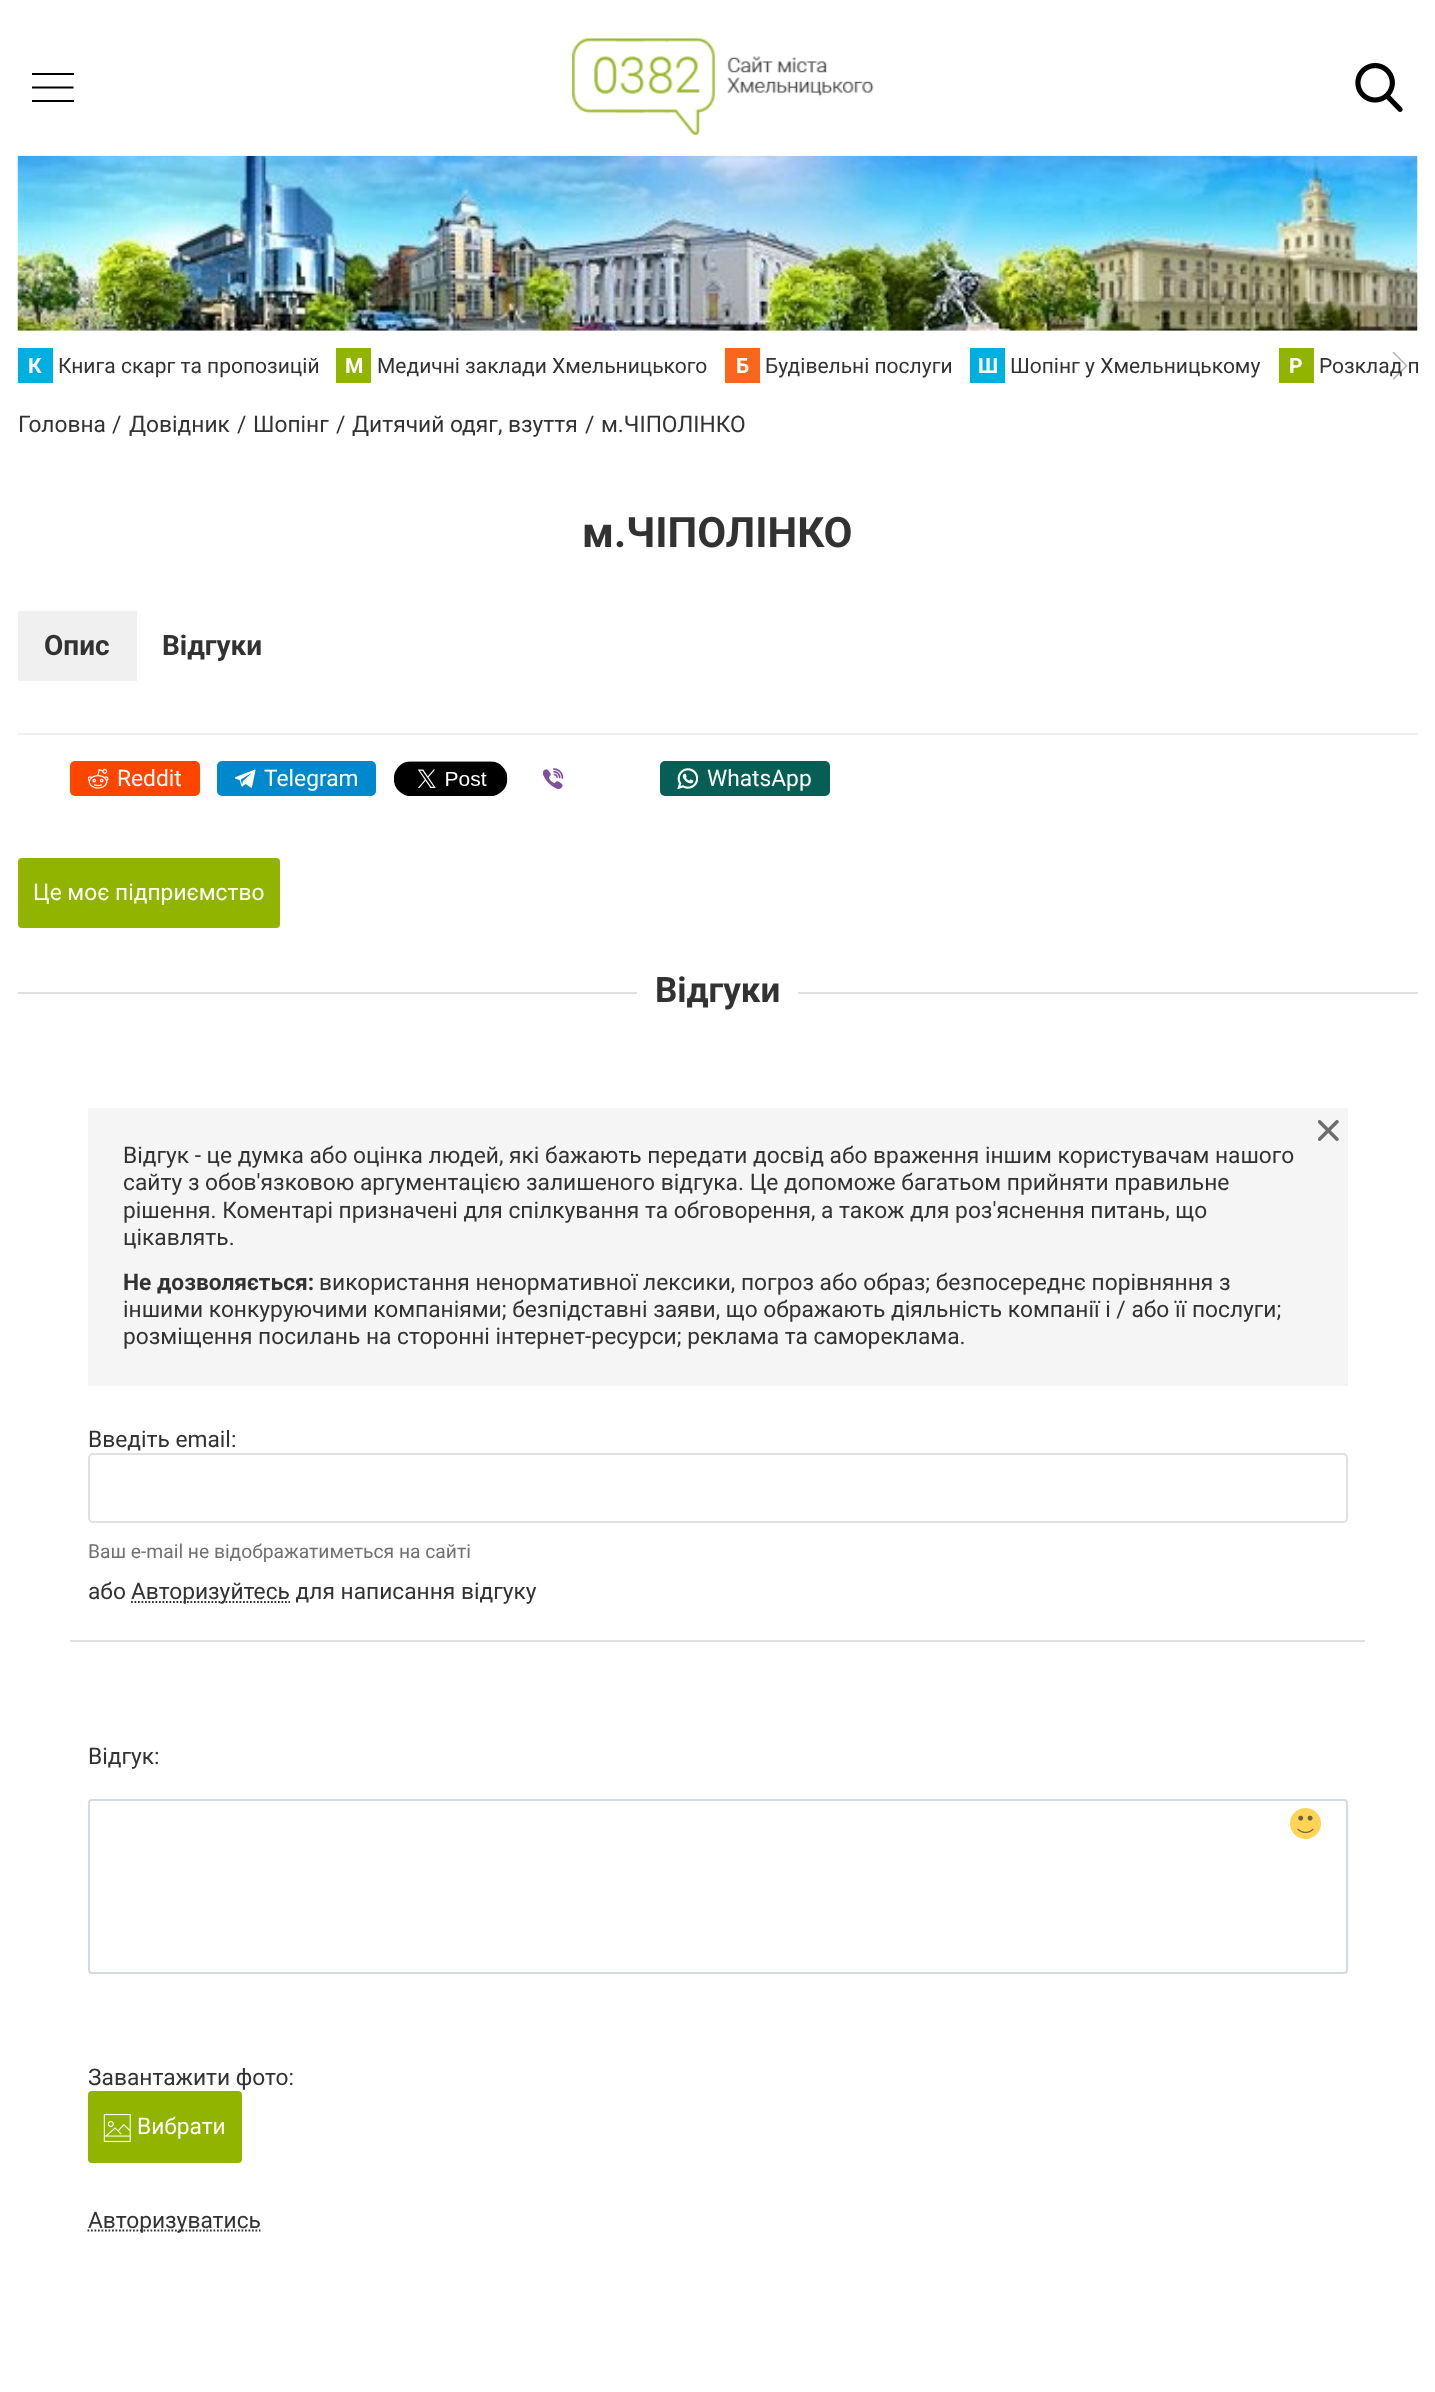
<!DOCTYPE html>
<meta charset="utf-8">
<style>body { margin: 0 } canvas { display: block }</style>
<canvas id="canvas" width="1435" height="2392"></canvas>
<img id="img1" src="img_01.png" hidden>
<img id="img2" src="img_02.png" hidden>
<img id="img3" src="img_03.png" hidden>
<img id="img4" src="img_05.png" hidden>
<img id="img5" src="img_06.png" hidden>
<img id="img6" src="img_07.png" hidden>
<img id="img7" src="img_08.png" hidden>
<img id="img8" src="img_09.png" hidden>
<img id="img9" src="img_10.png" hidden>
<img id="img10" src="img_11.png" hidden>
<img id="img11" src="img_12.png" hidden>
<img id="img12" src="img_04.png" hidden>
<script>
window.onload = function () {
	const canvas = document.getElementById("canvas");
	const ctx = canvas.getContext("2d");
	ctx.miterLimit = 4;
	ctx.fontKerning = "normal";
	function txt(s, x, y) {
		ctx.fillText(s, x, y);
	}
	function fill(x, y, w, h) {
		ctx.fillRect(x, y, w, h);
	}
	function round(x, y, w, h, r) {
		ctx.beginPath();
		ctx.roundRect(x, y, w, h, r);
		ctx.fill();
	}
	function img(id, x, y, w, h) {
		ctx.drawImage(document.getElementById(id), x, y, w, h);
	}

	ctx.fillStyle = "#FFFFFF";
	fill(0, 0, 1435, 2392);
	ctx.fillStyle = "#000000";
	fill(32, 73, 42, 2);
	ctx.save();
	ctx.beginPath();
	ctx.rect(32, 67, 42, 42);
	ctx.clip();
	ctx.beginPath();
	ctx.moveTo(31.5, 87.5);
	ctx.lineTo(73.5, 87.5);
	ctx.strokeStyle = "#000000";
	ctx.lineWidth = 2.1;
	ctx.stroke();
	ctx.restore();
	fill(32, 100, 42, 2);
	img("img1", 572, 38, 302, 97);
	img("img2", 1355, 63, 48, 49);
	img("img3", 17, 155, 1401, 176);
	ctx.fillStyle = "#00AFE1";
	fill(18, 348, 35, 35);
	ctx.fillStyle = "#90B400";
	fill(336, 348, 35, 35);
	ctx.fillStyle = "#FB661C";
	fill(725, 348, 35, 35);
	ctx.fillStyle = "#00AFE1";
	fill(970, 348, 35, 35);
	ctx.fillStyle = "#90B400";
	fill(1279, 348, 35, 35);
	ctx.fillStyle = "#F0F0F0";
	fill(18, 611, 119, 70);
	fill(18, 733, 1400, 2);
	ctx.fillStyle = "#FF4500";
	round(70, 761, 130, 35, 5);
	img("img4", 88, 768, 21, 21);
	ctx.fillStyle = "#0088CC";
	round(217, 761, 159, 35, 5);
	img("img5", 235, 769, 21, 19);
	img("img6", 394, 761, 114, 35);
	img("img7", 543, 768, 21, 21);
	ctx.fillStyle = "#075E54";
	round(660, 761, 170, 35, 5);
	img("img8", 677, 768, 21, 21);
	ctx.fillStyle = "#90B400";
	round(18, 858, 262, 70, 4);
	ctx.fillStyle = "#E0E0E0";
	fill(18, 992, 619, 2);
	fill(798, 992, 620, 2);
	ctx.fillStyle = "#F5F5F5";
	fill(88, 1108, 1260, 278);
	img("img9", 1318, 1120, 21, 21);
	ctx.fillStyle = "#E0E0E0";
	fill(70, 1640, 1295, 2);
	ctx.beginPath();
	ctx.roundRect(89, 1454, 1258, 68, 4);
	ctx.strokeStyle = "#E0E0E0";
	ctx.lineWidth = 2;
	ctx.stroke();
	ctx.beginPath();
	ctx.moveTo(131, 1602);
	ctx.lineTo(290, 1602);
	ctx.strokeStyle = "#323232";
	ctx.lineWidth = 1.8;
	ctx.setLineDash([1.75, 1.75]);
	ctx.stroke();
	ctx.beginPath();
	ctx.roundRect(89, 1800, 1258, 173, 3);
	ctx.strokeStyle = "#D2DBE3";
	ctx.lineWidth = 2;
	ctx.setLineDash([]);
	ctx.stroke();
	img("img10", 1290, 1808, 31, 31);
	ctx.fillStyle = "#90B400";
	round(88, 2091, 154, 72, 4);
	img("img11", 103, 2114, 28, 28);
	ctx.beginPath();
	ctx.moveTo(87.5, 2230.5);
	ctx.lineTo(260.5, 2230.5);
	ctx.strokeStyle = "#323232";
	ctx.lineWidth = 1.8;
	ctx.setLineDash([1.75, 1.75]);
	ctx.stroke();
	ctx.font = "bold 21px Roboto";
	ctx.fillStyle = "#FFFFFF";
	txt("К", 28, 373);
	ctx.font = "21px Roboto";
	ctx.fillStyle = "#323232";
	txt("Книга скарг та пропозицій", 58, 373);
	ctx.font = "bold 21px Roboto";
	ctx.fillStyle = "#FFFFFF";
	txt("М", 345, 373);
	ctx.font = "21px Roboto";
	ctx.fillStyle = "#323232";
	txt("Медичні заклади Хмельницького", 377, 373);
	ctx.font = "bold 21px Roboto";
	ctx.fillStyle = "#FFFFFF";
	txt("Б", 736, 373);
	ctx.font = "21px Roboto";
	ctx.fillStyle = "#323232";
	txt("Будівельні послуги", 765, 373);
	ctx.font = "bold 21px Roboto";
	ctx.fillStyle = "#FFFFFF";
	txt("Ш", 978, 373);
	ctx.font = "21px Roboto";
	ctx.fillStyle = "#323232";
	txt("Шопінг у Хмельницькому", 1010, 373);
	ctx.font = "bold 21px Roboto";
	ctx.fillStyle = "#FFFFFF";
	txt("Р", 1289, 373);
	ctx.font = "21px Roboto";
	ctx.fillStyle = "#323232";
	txt("Розклад п", 1319, 373);
	img("img12", 1392, 352, 16, 28);
	ctx.font = "22.75px Roboto";
	txt("Головна", 18, 432);
	txt("/", 112, 432);
	txt("Довідник", 129, 432);
	txt("/", 237, 432);
	txt("Шопінг", 253, 432);
	txt("/", 336, 432);
	txt("Дитячий одяг, взуття", 352, 432);
	txt("/", 585, 432);
	txt("м.ЧІПОЛІНКО", 601, 432);
	ctx.font = "bold 42px Roboto";
	txt("м.ЧІПОЛІНКО", 582, 547);
	ctx.font = "bold 28px Roboto";
	txt("Опис", 44, 655);
	txt("Відгуки", 162, 655);
	ctx.font = "22.75px Roboto";
	ctx.fillStyle = "#FFFFFF";
	txt("Reddit", 117, 786);
	txt("Telegram", 264, 786);
	txt("WhatsApp", 707, 786);
	txt("Це моє підприємство", 33, 900);
	ctx.font = "bold 35px Roboto";
	ctx.fillStyle = "#323232";
	txt("Відгуки", 655, 1002);
	ctx.font = "22.75px Roboto";
	txt("Відгук - це думка або оцінка людей, які бажають передати досвід або враження іншим користувачам нашого", 123, 1163);
	txt("сайту з обов'язковою аргументацією залишеного відгука. Це допоможе багатьом прийняти правильне", 123, 1190);
	txt("рішення. Коментарі призначені для спілкування та обговорення, а також для роз'яснення питань, що", 123, 1218);
	txt("цікавлять.", 123, 1245);
	ctx.font = "bold 22.75px Roboto";
	txt("Не дозволяється:", 123, 1290);
	ctx.font = "22.75px Roboto";
	txt("використання ненормативної лексики, погроз або образ; безпосереднє порівняння з", 319, 1290);
	txt("іншими конкуруючими компаніями; безпідставні заяви, що ображають діяльність компанії і / або її послуги;", 123, 1317);
	txt("розміщення посилань на сторонні інтернет-ресурси; реклама та самореклама.", 123, 1344);
	txt("Введіть email:", 88, 1447);
	ctx.font = "19.25px Roboto";
	ctx.fillStyle = "#707070";
	txt("Ваш e-mail не відображатиметься на сайті", 88, 1558);
	ctx.font = "22.75px Roboto";
	ctx.fillStyle = "#323232";
	txt("або", 88, 1599);
	txt("Авторизуйтесь для написання відгуку", 131, 1599);
	txt("Відгук:", 88, 1764);
	txt("Завантажити фото:", 88, 2085);
	ctx.fillStyle = "#FFFFFF";
	txt("Вибрати", 137, 2134);
	ctx.fillStyle = "#323232";
	txt("Авторизуватись", 88, 2228);
};
</script>
